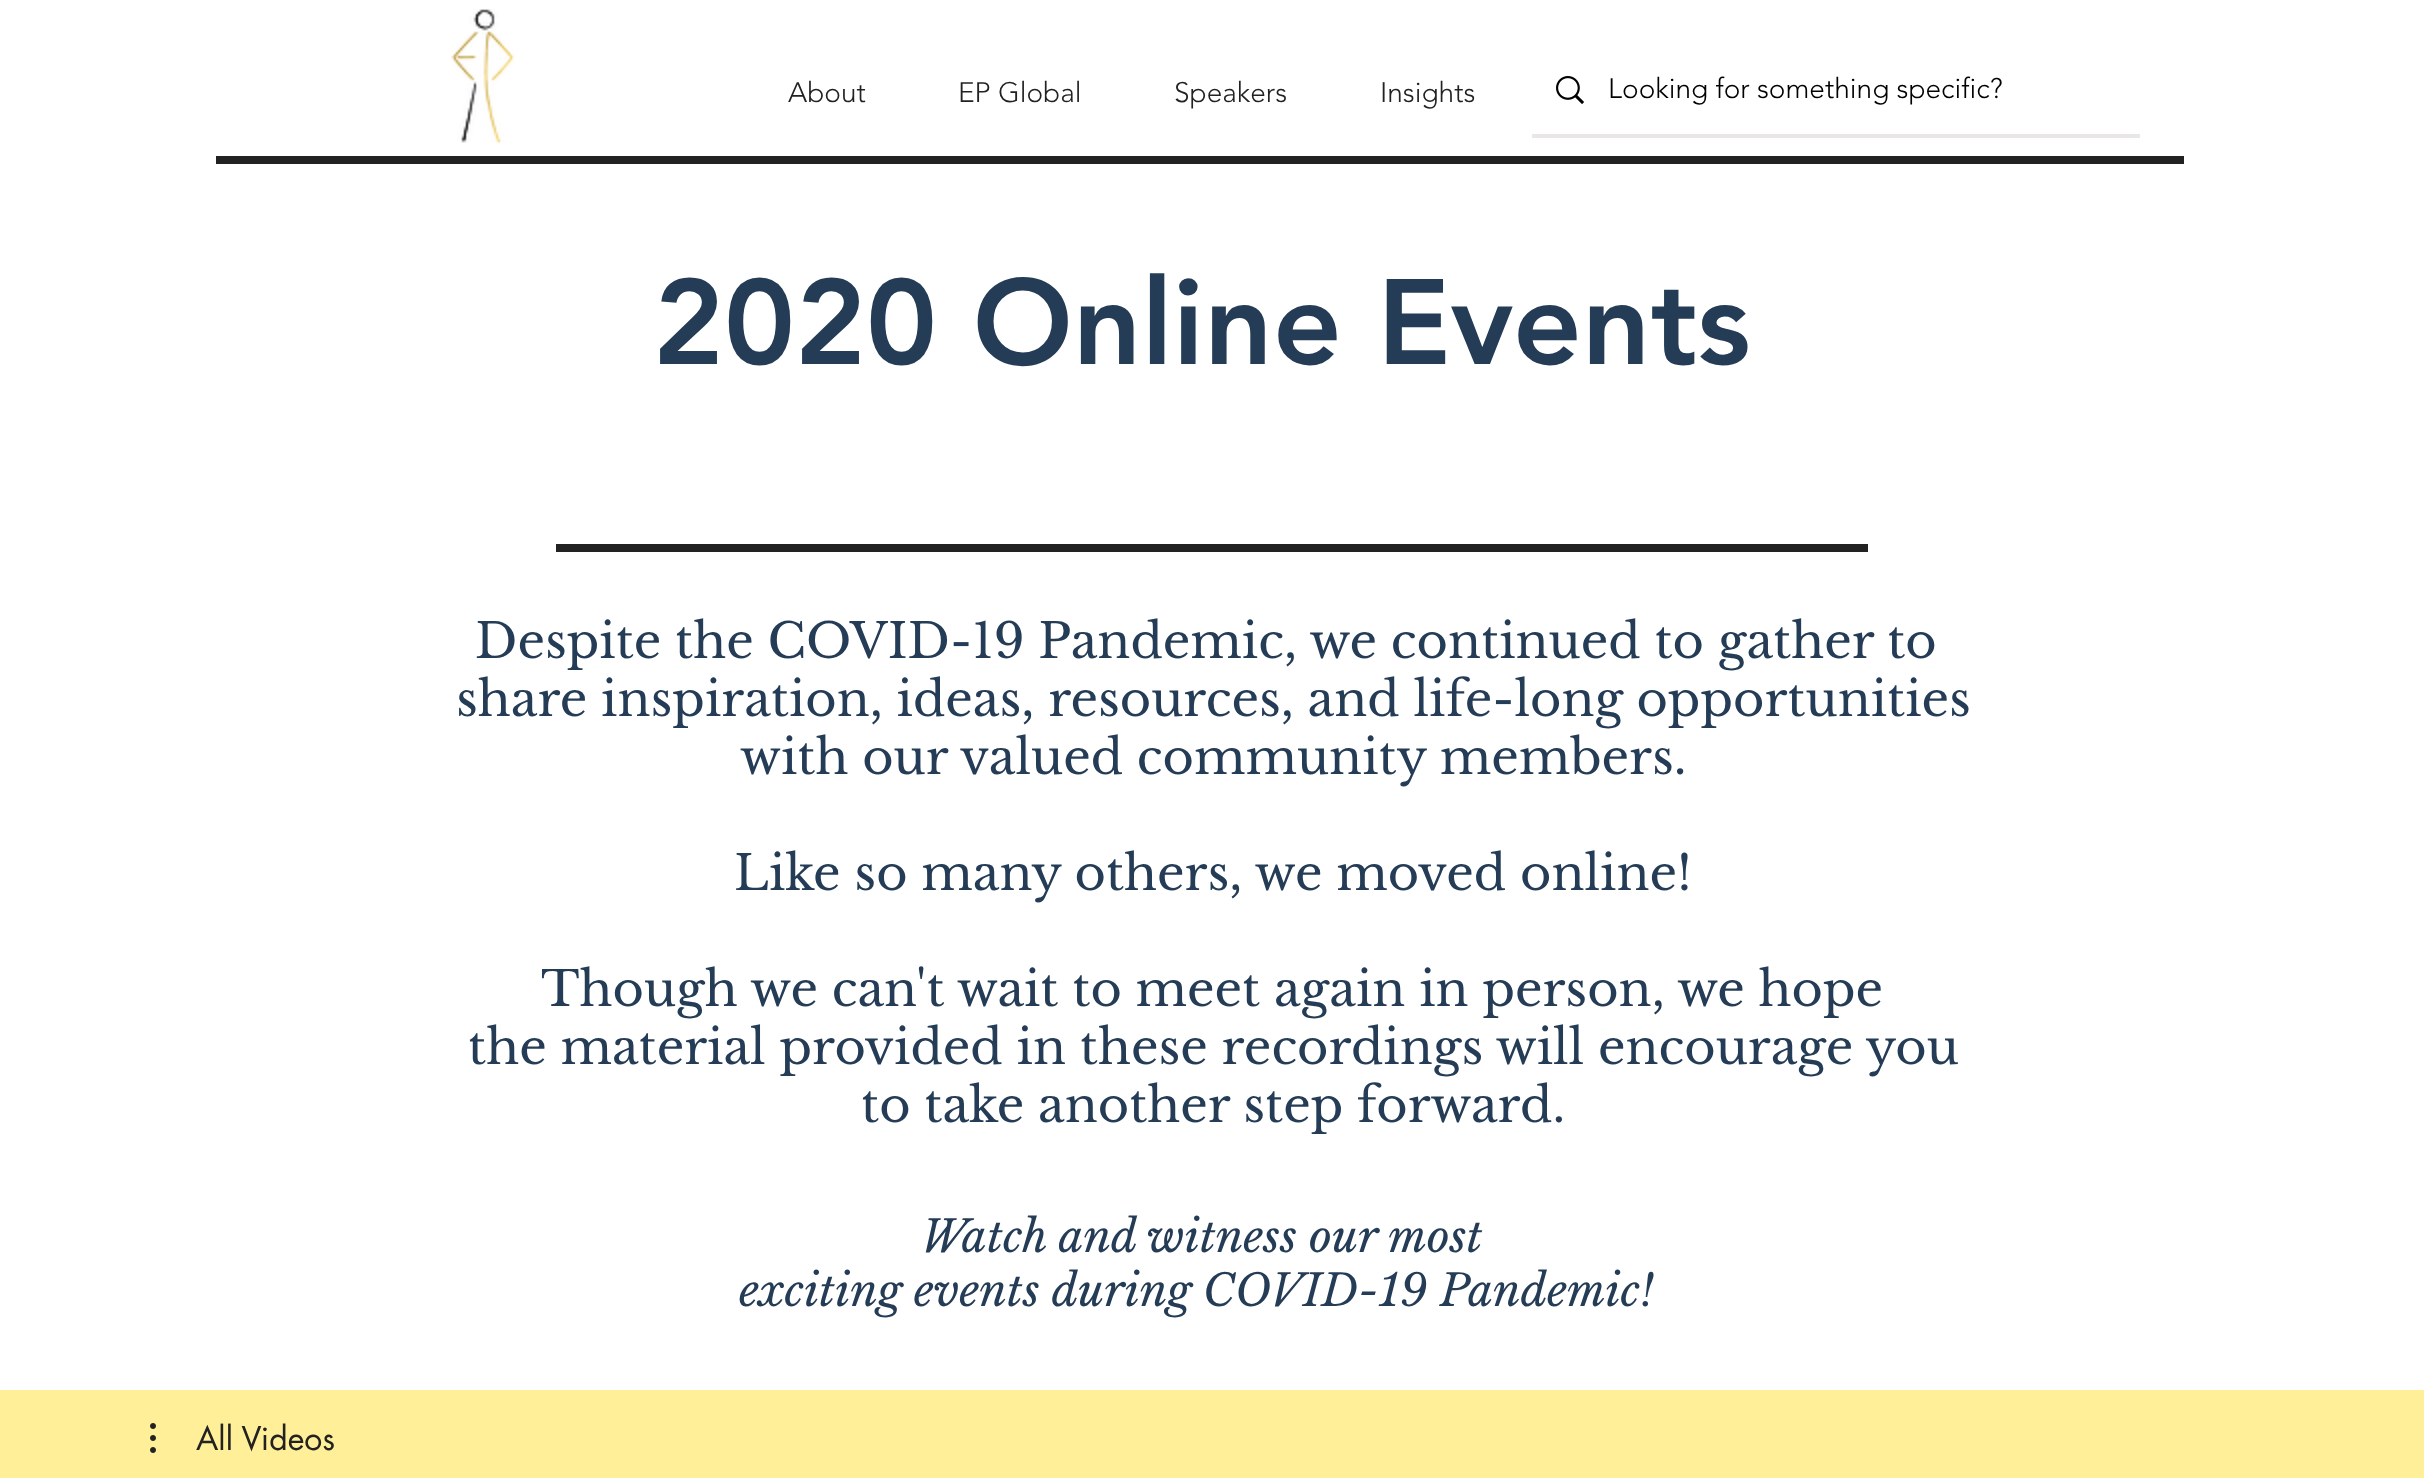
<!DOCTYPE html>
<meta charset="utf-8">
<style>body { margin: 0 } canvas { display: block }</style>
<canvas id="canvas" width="2424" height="1478"></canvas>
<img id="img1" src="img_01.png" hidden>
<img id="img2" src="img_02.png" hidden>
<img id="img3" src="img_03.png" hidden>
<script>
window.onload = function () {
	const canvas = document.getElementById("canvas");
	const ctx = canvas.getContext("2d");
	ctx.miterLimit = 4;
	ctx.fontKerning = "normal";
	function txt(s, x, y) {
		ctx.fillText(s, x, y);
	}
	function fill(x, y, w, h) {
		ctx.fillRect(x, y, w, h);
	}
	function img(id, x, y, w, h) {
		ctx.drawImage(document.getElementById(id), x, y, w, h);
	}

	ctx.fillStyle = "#FFFFFF";
	fill(0, 0, 2424, 1478);
	img("img1", 451, 9, 64, 135);
	ctx.fillStyle = "#E8E6E6";
	fill(1532, 134, 608, 4);
	img("img2", 1556, 76, 28, 28);
	ctx.fillStyle = "#222222";
	fill(216, 156, 1968, 8);
	fill(556, 544, 1312, 8);
	ctx.fillStyle = "#FFEF98";
	fill(0, 1390, 2424, 88);
	img("img3", 150, 1423, 6, 30);
	ctx.font = "300 28px 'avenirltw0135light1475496'";
	ctx.fillStyle = "#222222";
	txt("About", 788, 102);
	txt("EP Global", 958, 102);
	txt("Speakers", 1174, 102);
	txt("Insights", 1380, 102);
	ctx.fillStyle = "#000000";
	txt("Looking for something specific?", 1608, 98);
	ctx.font = "900 120px 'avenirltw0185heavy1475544'";
	ctx.fillStyle = "#253C57";
	txt("2020 Online Events", 653, 364);
	ctx.font = "48px Libre Baskerville";
	txt("Despite the COVID-19 Pandemic, we continued to gather to", 475, 658);
	txt("share inspiration, ideas, resources, and life-long opportunities", 456, 716);
	txt("with our", 740, 774);
	txt("valued community members.", 960, 774);
	txt("Like so many others, we moved online!", 734, 890);
	txt("Though we can't wait to meet again in person, we hope", 541, 1006);
	txt("the material provided in these recordings will encourage you", 468, 1064);
	txt("to take another step forward.", 861, 1122);
	ctx.font = "italic 44px Libre Baskerville";
	txt("Watch and witness our most", 921, 1252);
	txt("exciting events during COVID-19 Pandemic!", 739, 1306);
	ctx.font = "32px futura";
	ctx.fillStyle = "#222222";
	txt("All Videos", 196, 1450);
};
</script>
